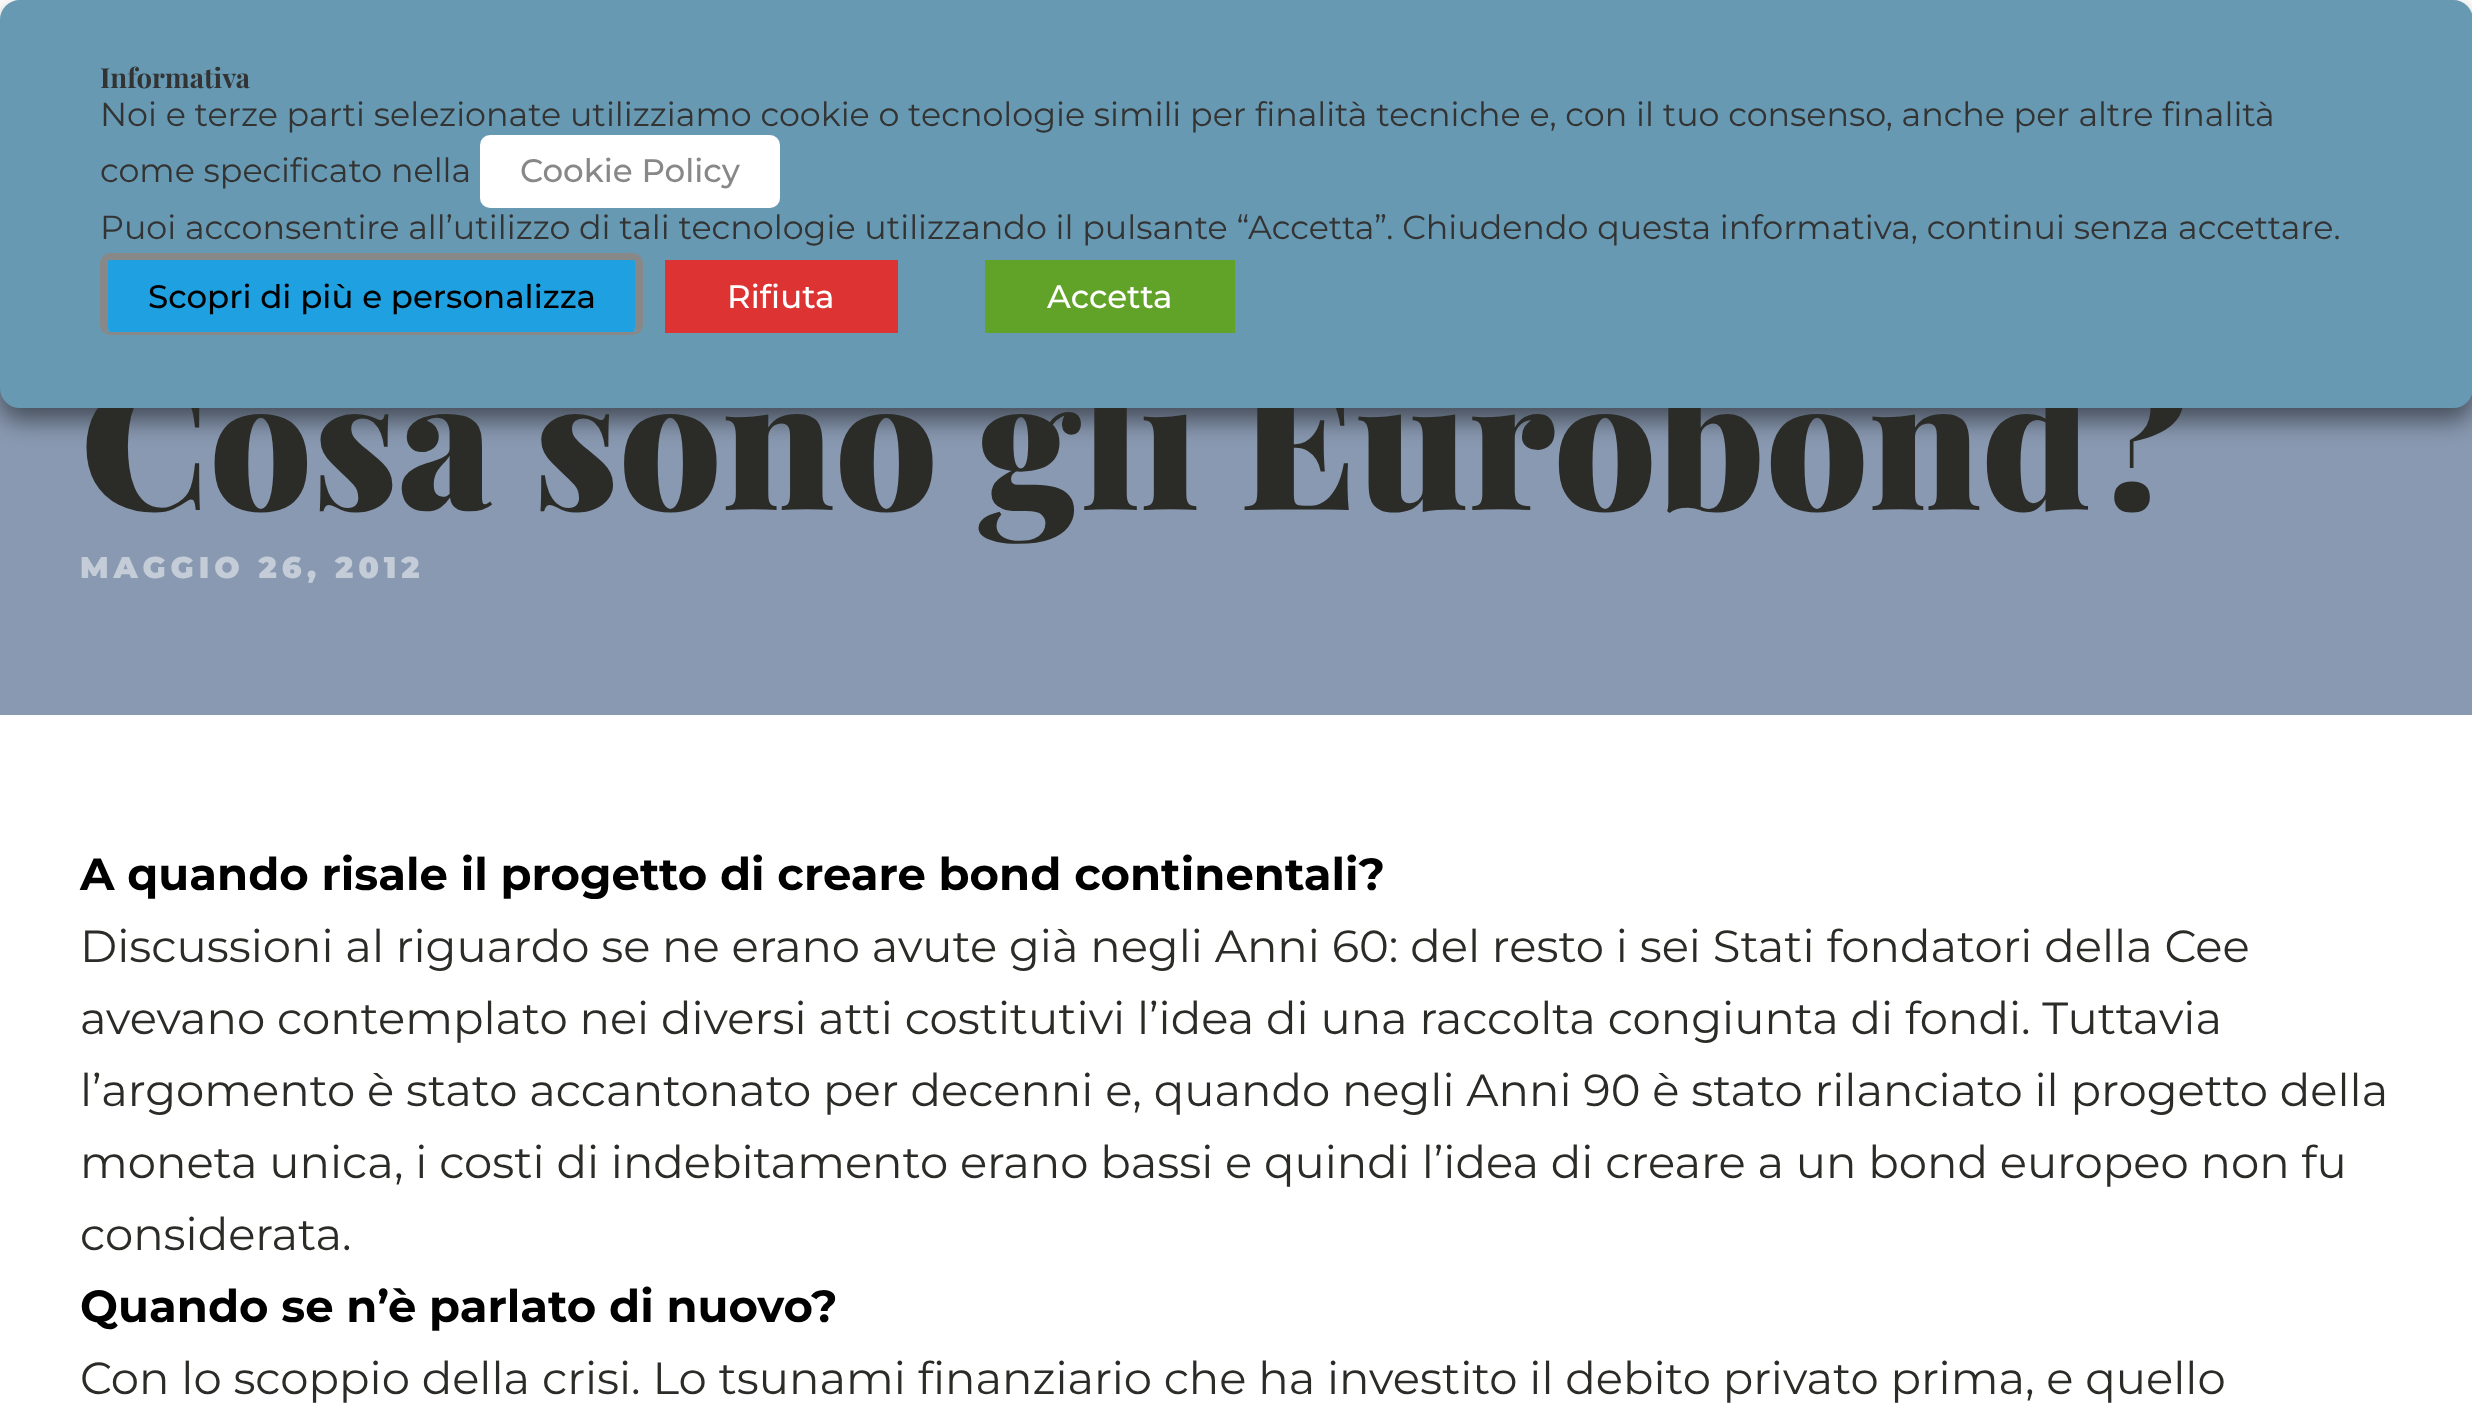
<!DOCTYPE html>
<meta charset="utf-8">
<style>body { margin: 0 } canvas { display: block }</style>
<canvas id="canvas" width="2472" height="1418"></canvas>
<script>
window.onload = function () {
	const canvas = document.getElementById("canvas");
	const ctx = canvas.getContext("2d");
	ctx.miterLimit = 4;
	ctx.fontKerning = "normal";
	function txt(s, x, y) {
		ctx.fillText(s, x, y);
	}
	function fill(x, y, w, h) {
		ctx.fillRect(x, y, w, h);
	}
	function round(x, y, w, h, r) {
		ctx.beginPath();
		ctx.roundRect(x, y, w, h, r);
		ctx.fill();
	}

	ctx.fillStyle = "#FFFFFF";
	fill(0, 0, 2472, 1418);
	ctx.fillStyle = "#8999B1";
	fill(0, 388, 2472, 327);
	ctx.fillStyle = "rgba(0, 0, 0, 0.5)";
	ctx.filter = "blur(12.5px)";
	ctx.beginPath();
	ctx.roundRect(0, 13, 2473, 407, 20);
	ctx.fill();
	ctx.filter = "none";
	ctx.font = "900 180px Playfair Display";
	ctx.fillStyle = "#2B2C27";
	txt("Cosa sono gli Eurobond?", 80, 510);
	ctx.fillStyle = "#6799B2";
	ctx.beginPath();
	ctx.roundRect(12.5, 12.5, 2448, 383, 7.5);
	ctx.fill();
	ctx.strokeStyle = "#6799B2";
	ctx.lineWidth = 25;
	ctx.stroke();
	ctx.fillStyle = "#61A229";
	fill(985, 260, 250, 73);
	ctx.font = "500 32.5px Montserrat";
	ctx.fillStyle = "#FFFFFF";
	txt("Accetta", 1047, 308);
	ctx.fillStyle = "#DD3333";
	fill(665, 260, 233, 73);
	ctx.fillStyle = "#FFFFFF";
	txt("Rifiuta", 727, 308);
	ctx.fillStyle = "#1FA0E0";
	ctx.beginPath();
	ctx.moveTo(110, 260);
	ctx.lineTo(632, 260);
	ctx.bezierCurveTo(634, 260, 635, 261, 635, 262);
	ctx.lineTo(635, 325);
	ctx.bezierCurveTo(635, 329, 634, 332, 632, 332);
	ctx.lineTo(110, 332);
	ctx.bezierCurveTo(109, 332, 108, 329, 108, 325);
	ctx.lineTo(108, 262);
	ctx.bezierCurveTo(108, 261, 109, 260, 110, 260);
	ctx.closePath();
	ctx.fill();
	ctx.beginPath();
	ctx.roundRect(101.5, 254.5, 540, 79, 8.5);
	ctx.strokeStyle = "#898888";
	ctx.lineWidth = 3;
	ctx.stroke();
	ctx.fillStyle = "#000000";
	txt("Scopri di più e personalizza", 148, 308);
	ctx.fillStyle = "#898888";
	fill(105, 256, 533, 4);
	fill(103, 258, 5, 72);
	fill(635, 258, 5, 72);
	ctx.fillStyle = "#FFFFFF";
	round(480, 135, 300, 73, 10);
	ctx.fillStyle = "#898888";
	txt("Cookie Policy", 520, 182);
	ctx.font = "33.33px Montserrat";
	ctx.fillStyle = "#333333";
	txt("Puoi acconsentire all’utilizzo di tali tecnologie utilizzando il pulsante “Accetta”. Chiudendo questa informativa, continui senza accettare.", 100, 239);
	txt("come specificato nella", 100, 182);
	txt("Noi e terze parti selezionate utilizziamo cookie o tecnologie simili per finalità tecniche e, con il tuo consenso, anche per altre finalità", 100, 126);
	ctx.font = "bold 27.5px Playfair Display";
	txt("Informativa", 100, 88);
	ctx.letterSpacing = "5px";
	ctx.font = "900 30px Montserrat";
	ctx.fillStyle = "#C4CCD8";
	txt("MAGGIO 26, 2012", 80, 578);
	ctx.letterSpacing = "0px";
	ctx.font = "bold 45px Montserrat";
	ctx.fillStyle = "#000000";
	txt("A quando risale il progetto di creare bond continentali?", 80, 890);
	ctx.font = "45px Montserrat";
	ctx.fillStyle = "#2B2C27";
	txt("Discussioni al riguardo se ne erano avute già negli Anni 60: del resto i sei Stati fondatori della Cee", 80, 962);
	txt("avevano contemplato nei diversi atti costitutivi l’idea di una raccolta congiunta di fondi. Tuttavia", 80, 1034);
	txt("l’argomento è stato accantonato per decenni e, quando negli Anni 90 è stato rilanciato il progetto della", 80, 1106);
	txt("moneta unica, i costi di indebitamento erano bassi e quindi l’idea di creare a un bond europeo non fu", 80, 1178);
	txt("considerata.", 80, 1250);
	ctx.font = "bold 45px Montserrat";
	ctx.fillStyle = "#000000";
	txt("Quando se n’è parlato di nuovo?", 80, 1322);
	ctx.font = "45px Montserrat";
	ctx.fillStyle = "#2B2C27";
	txt("Con lo scoppio della crisi. Lo tsunami finanziario che ha investito il debito privato prima, e quello", 80, 1394);
};
</script>
